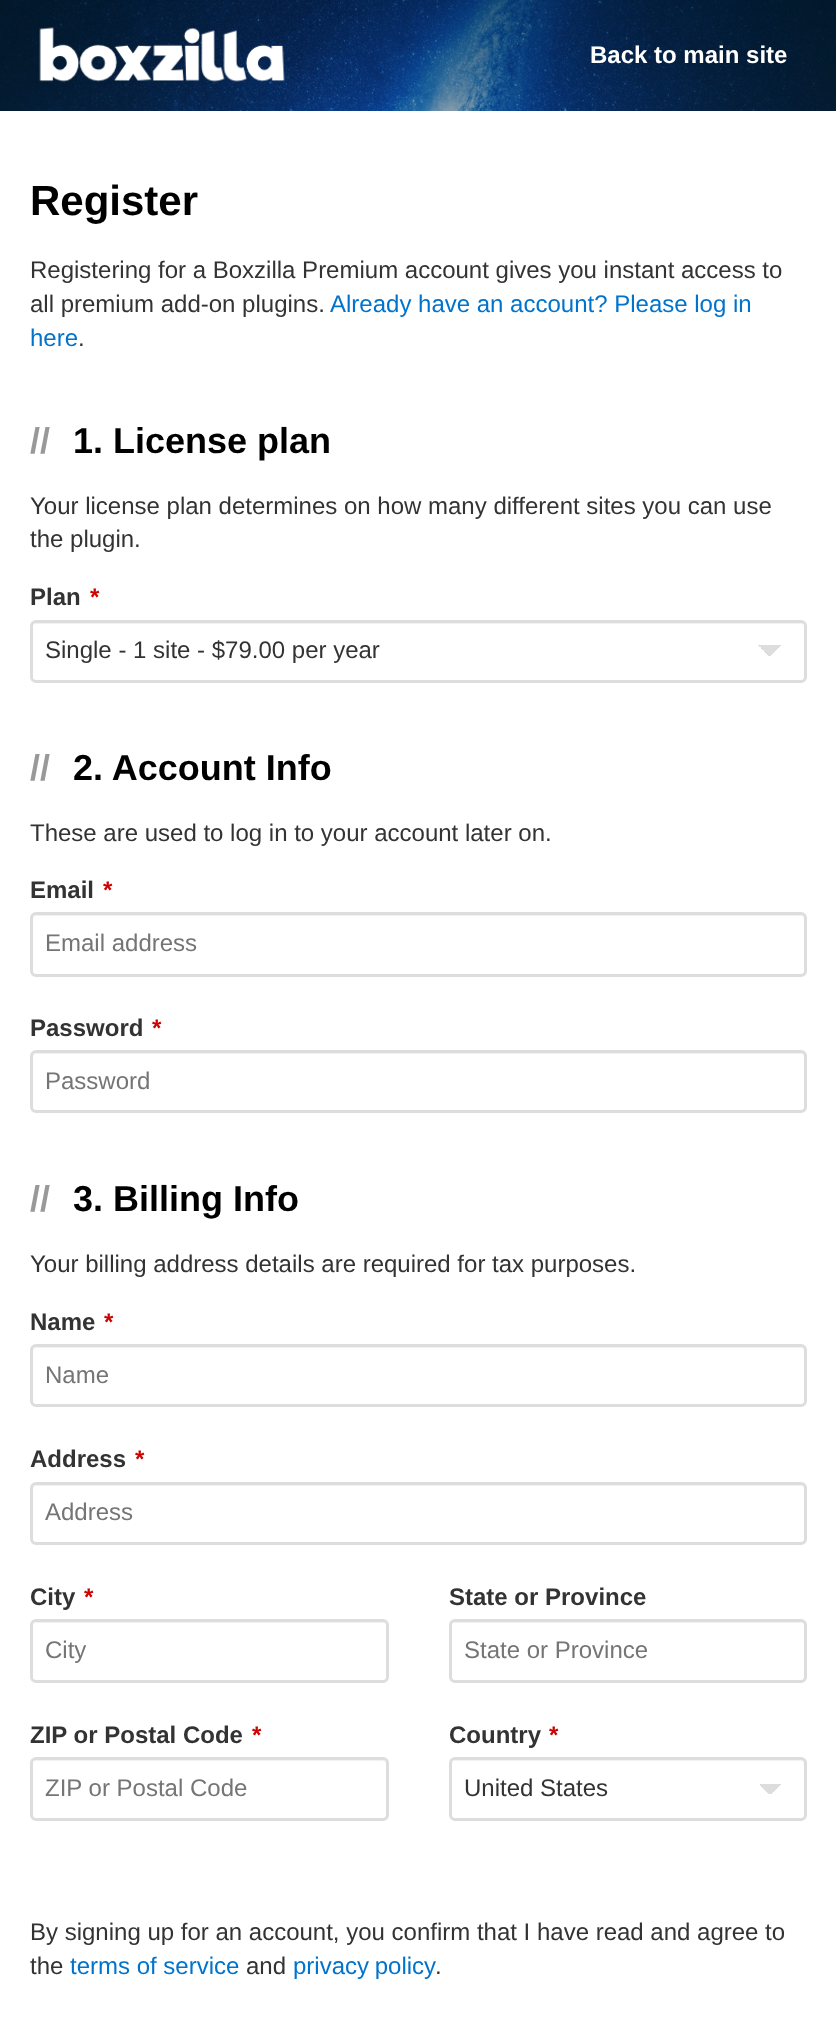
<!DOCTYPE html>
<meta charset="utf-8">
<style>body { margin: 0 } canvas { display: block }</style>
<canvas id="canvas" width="836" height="2025"></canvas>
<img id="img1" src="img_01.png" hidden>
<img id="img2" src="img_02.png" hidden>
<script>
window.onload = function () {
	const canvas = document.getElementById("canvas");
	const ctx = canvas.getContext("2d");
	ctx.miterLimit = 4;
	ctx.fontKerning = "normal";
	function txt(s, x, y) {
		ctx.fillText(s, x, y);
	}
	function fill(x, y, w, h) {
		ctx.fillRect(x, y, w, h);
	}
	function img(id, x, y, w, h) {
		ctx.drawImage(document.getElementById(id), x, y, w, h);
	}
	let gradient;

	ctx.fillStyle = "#FFFFFF";
	fill(0, 0, 836, 2025);
	img("img1", 0, 0, 836, 111);
	img("img2", 39, 27, 246, 55);
	gradient = ctx.createLinearGradient(770, 645, 782, 657);
	gradient.addColorStop(0.5, "#DDDDDD");
	gradient.addColorStop(0.5, "#FFFFFF");
	ctx.fillStyle = gradient;
	fill(770, 645, 12, 11);
	gradient = ctx.createLinearGradient(758, 657, 770, 645);
	gradient.addColorStop(0.5, "#FFFFFF");
	gradient.addColorStop(0.5, "#DDDDDD");
	ctx.fillStyle = gradient;
	fill(758, 645, 12, 11);
	ctx.fillStyle = "#F2F2F2";
	ctx.beginPath();
	ctx.moveTo(36, 624);
	ctx.lineTo(801, 624);
	ctx.bezierCurveTo(803, 624, 804, 625, 804, 627);
	ctx.bezierCurveTo(804, 625, 803, 623, 801, 623);
	ctx.lineTo(36, 623);
	ctx.bezierCurveTo(34, 623, 33, 625, 33, 627);
	ctx.bezierCurveTo(33, 625, 34, 624, 36, 624);
	ctx.closePath();
	ctx.fill();
	ctx.beginPath();
	ctx.roundRect(31.5, 621.5, 774, 60, 4.5);
	ctx.strokeStyle = "#DDDDDD";
	ctx.lineWidth = 3;
	ctx.stroke();
	ctx.beginPath();
	ctx.moveTo(36, 916);
	ctx.lineTo(801, 916);
	ctx.bezierCurveTo(803, 916, 804, 918, 804, 920);
	ctx.lineTo(804, 918);
	ctx.bezierCurveTo(804, 916, 803, 915, 801, 915);
	ctx.lineTo(36, 915);
	ctx.bezierCurveTo(34, 915, 33, 916, 33, 918);
	ctx.lineTo(33, 920);
	ctx.bezierCurveTo(33, 918, 34, 916, 36, 916);
	ctx.closePath();
	ctx.fill();
	ctx.beginPath();
	ctx.roundRect(31.5, 913.5, 774, 62, 4.5);
	ctx.stroke();
	ctx.beginPath();
	ctx.moveTo(36, 1054);
	ctx.lineTo(801, 1054);
	ctx.bezierCurveTo(803, 1054, 804, 1056, 804, 1058);
	ctx.lineTo(804, 1056);
	ctx.bezierCurveTo(804, 1054, 803, 1053, 801, 1053);
	ctx.lineTo(36, 1053);
	ctx.bezierCurveTo(34, 1053, 33, 1054, 33, 1056);
	ctx.lineTo(33, 1058);
	ctx.bezierCurveTo(33, 1056, 34, 1054, 36, 1054);
	ctx.closePath();
	ctx.fill();
	ctx.beginPath();
	ctx.roundRect(31.5, 1051.5, 774, 60, 4.5);
	ctx.stroke();
	ctx.beginPath();
	ctx.moveTo(36, 1348);
	ctx.lineTo(801, 1348);
	ctx.bezierCurveTo(803, 1348, 804, 1350, 804, 1352);
	ctx.lineTo(804, 1350);
	ctx.bezierCurveTo(804, 1348, 803, 1347, 801, 1347);
	ctx.lineTo(36, 1347);
	ctx.bezierCurveTo(34, 1347, 33, 1348, 33, 1350);
	ctx.lineTo(33, 1352);
	ctx.bezierCurveTo(33, 1350, 34, 1348, 36, 1348);
	ctx.closePath();
	ctx.fill();
	ctx.beginPath();
	ctx.roundRect(31.5, 1345.5, 774, 60, 4.5);
	ctx.stroke();
	ctx.beginPath();
	ctx.moveTo(36, 1486);
	ctx.lineTo(801, 1486);
	ctx.bezierCurveTo(803, 1486, 804, 1488, 804, 1490);
	ctx.lineTo(804, 1488);
	ctx.bezierCurveTo(804, 1486, 803, 1485, 801, 1485);
	ctx.lineTo(36, 1485);
	ctx.bezierCurveTo(34, 1485, 33, 1486, 33, 1488);
	ctx.lineTo(33, 1490);
	ctx.bezierCurveTo(33, 1488, 34, 1486, 36, 1486);
	ctx.closePath();
	ctx.fill();
	ctx.beginPath();
	ctx.roundRect(31.5, 1483.5, 774, 60, 4.5);
	ctx.stroke();
	ctx.beginPath();
	ctx.moveTo(36, 1623);
	ctx.lineTo(382, 1623);
	ctx.bezierCurveTo(384, 1623, 386, 1624, 386, 1626);
	ctx.bezierCurveTo(386, 1624, 385, 1622, 383, 1622);
	ctx.lineTo(36, 1622);
	ctx.lineTo(34, 1623);
	ctx.lineTo(33, 1626);
	ctx.bezierCurveTo(33, 1624, 34, 1623, 36, 1623);
	ctx.closePath();
	ctx.fill();
	ctx.beginPath();
	ctx.roundRect(31.5, 1620.5, 356, 61, 4.5);
	ctx.stroke();
	ctx.beginPath();
	ctx.moveTo(454, 1623);
	ctx.lineTo(801, 1623);
	ctx.bezierCurveTo(803, 1623, 804, 1624, 804, 1626);
	ctx.bezierCurveTo(804, 1624, 803, 1622, 801, 1622);
	ctx.lineTo(455, 1622);
	ctx.lineTo(453, 1623);
	ctx.lineTo(452, 1626);
	ctx.bezierCurveTo(452, 1624, 453, 1623, 454, 1623);
	ctx.closePath();
	ctx.fill();
	ctx.beginPath();
	ctx.roundRect(450.5, 1620.5, 355, 61, 4.5);
	ctx.stroke();
	ctx.beginPath();
	ctx.moveTo(36, 1761);
	ctx.lineTo(382, 1761);
	ctx.bezierCurveTo(384, 1761, 386, 1762, 386, 1764);
	ctx.bezierCurveTo(386, 1762, 385, 1760, 383, 1760);
	ctx.lineTo(36, 1760);
	ctx.lineTo(34, 1761);
	ctx.lineTo(33, 1764);
	ctx.bezierCurveTo(33, 1762, 34, 1761, 36, 1761);
	ctx.closePath();
	ctx.fill();
	ctx.beginPath();
	ctx.roundRect(31.5, 1758.5, 356, 61, 4.5);
	ctx.stroke();
	gradient = ctx.createLinearGradient(770, 1783, 782, 1795);
	gradient.addColorStop(0.5, "#DDDDDD");
	gradient.addColorStop(0.5, "#FFFFFF");
	ctx.fillStyle = gradient;
	fill(770, 1784, 11, 10);
	gradient = ctx.createLinearGradient(758, 1795, 770, 1783);
	gradient.addColorStop(0.5, "#FFFFFF");
	gradient.addColorStop(0.5, "#DDDDDD");
	ctx.fillStyle = gradient;
	fill(760, 1784, 10, 10);
	ctx.fillStyle = "#F2F2F2";
	ctx.beginPath();
	ctx.moveTo(454, 1761);
	ctx.lineTo(801, 1761);
	ctx.bezierCurveTo(803, 1761, 804, 1762, 804, 1764);
	ctx.bezierCurveTo(804, 1762, 803, 1760, 801, 1760);
	ctx.lineTo(455, 1760);
	ctx.lineTo(453, 1761);
	ctx.lineTo(452, 1764);
	ctx.bezierCurveTo(452, 1762, 453, 1761, 454, 1761);
	ctx.closePath();
	ctx.fill();
	ctx.beginPath();
	ctx.roundRect(450.5, 1758.5, 355, 61, 4.5);
	ctx.stroke();
	ctx.font = "bold 24px Liberation Sans";
	ctx.fillStyle = "#FFFFFF";
	txt("Back to main site", 590, 63);
	ctx.font = "bold 42px Liberation Sans";
	ctx.fillStyle = "#000000";
	txt("Register", 30, 215);
	ctx.font = "24px Liberation Sans";
	ctx.fillStyle = "#333333";
	txt("Registering for a Boxzilla Premium account gives you instant access to", 30, 278);
	txt("all premium add-on plugins.", 30, 312);
	ctx.fillStyle = "#0073CC";
	txt("Already have an account? Please log in", 330, 312);
	txt("here", 30, 346);
	ctx.fillStyle = "#333333";
	txt(".", 78, 346);
	ctx.font = "bold 36px Liberation Sans";
	ctx.fillStyle = "#999999";
	txt("//", 30, 453);
	ctx.fillStyle = "#000000";
	txt("1. License plan", 73, 453);
	ctx.font = "24px Liberation Sans";
	ctx.fillStyle = "#333333";
	txt("Your license plan determines on how many different sites you can use", 30, 514);
	txt("the plugin.", 30, 547);
	ctx.font = "bold 24px Liberation Sans";
	txt("Plan", 30, 605);
	ctx.fillStyle = "#CC0300";
	txt("*", 90, 605);
	ctx.font = "24px Liberation Sans";
	ctx.fillStyle = "#333333";
	txt("Single - 1 site - $79.00 per year", 45, 658);
	ctx.font = "bold 36px Liberation Sans";
	ctx.fillStyle = "#999999";
	txt("//", 30, 780);
	ctx.fillStyle = "#000000";
	txt("2. Account Info", 73, 780);
	ctx.font = "24px Liberation Sans";
	ctx.fillStyle = "#333333";
	txt("These are used to log in to your account later on.", 30, 841);
	ctx.font = "bold 24px Liberation Sans";
	txt("Email", 30, 898);
	ctx.fillStyle = "#CC0300";
	txt("*", 103, 898);
	ctx.font = "24px Liberation Sans";
	ctx.fillStyle = "#757575";
	txt("Email address", 45, 951);
	ctx.font = "bold 24px Liberation Sans";
	ctx.fillStyle = "#333333";
	txt("Password", 30, 1036);
	ctx.fillStyle = "#CC0300";
	txt("*", 152, 1036);
	ctx.font = "24px Liberation Sans";
	ctx.fillStyle = "#757575";
	txt("Password", 45, 1089);
	ctx.font = "bold 36px Liberation Sans";
	ctx.fillStyle = "#999999";
	txt("//", 30, 1211);
	ctx.fillStyle = "#000000";
	txt("3. Billing Info", 73, 1211);
	ctx.font = "24px Liberation Sans";
	ctx.fillStyle = "#333333";
	txt("Your billing address details are required for tax purposes.", 30, 1272);
	ctx.font = "bold 24px Liberation Sans";
	txt("Name", 30, 1330);
	ctx.fillStyle = "#CC0300";
	txt("*", 104, 1330);
	ctx.font = "24px Liberation Sans";
	ctx.fillStyle = "#757575";
	txt("Name", 45, 1383);
	ctx.font = "bold 24px Liberation Sans";
	ctx.fillStyle = "#333333";
	txt("Address", 30, 1467);
	ctx.fillStyle = "#CC0300";
	txt("*", 135, 1467);
	ctx.font = "24px Liberation Sans";
	ctx.fillStyle = "#757575";
	txt("Address", 45, 1520);
	ctx.font = "bold 24px Liberation Sans";
	ctx.fillStyle = "#333333";
	txt("City", 30, 1605);
	ctx.fillStyle = "#CC0300";
	txt("*", 84, 1605);
	ctx.font = "24px Liberation Sans";
	ctx.fillStyle = "#757575";
	txt("City", 45, 1658);
	ctx.font = "bold 24px Liberation Sans";
	ctx.fillStyle = "#333333";
	txt("State or Province", 449, 1605);
	ctx.font = "24px Liberation Sans";
	ctx.fillStyle = "#757575";
	txt("State or Province", 464, 1658);
	ctx.font = "bold 24px Liberation Sans";
	ctx.fillStyle = "#333333";
	txt("ZIP or Postal Code", 30, 1743);
	ctx.fillStyle = "#CC0300";
	txt("*", 252, 1743);
	ctx.font = "24px Liberation Sans";
	ctx.fillStyle = "#757575";
	txt("ZIP or Postal Code", 45, 1796);
	ctx.font = "bold 24px Liberation Sans";
	ctx.fillStyle = "#333333";
	txt("Country", 449, 1743);
	ctx.fillStyle = "#CC0300";
	txt("*", 549, 1743);
	ctx.font = "24px Liberation Sans";
	ctx.fillStyle = "#333333";
	txt("United States", 464, 1796);
	txt("By signing up for an account, you confirm that I have read and agree to", 30, 1940);
	txt("the", 30, 1974);
	ctx.fillStyle = "#0073CC";
	txt("terms of service", 70, 1974);
	ctx.fillStyle = "#333333";
	txt("and", 246, 1974);
	ctx.wordSpacing = "-1px";
	ctx.fillStyle = "#0073CC";
	txt("privacy policy", 293, 1974);
	ctx.wordSpacing = "0px";
	ctx.fillStyle = "#333333";
	txt(".", 435, 1974);
};
</script>
